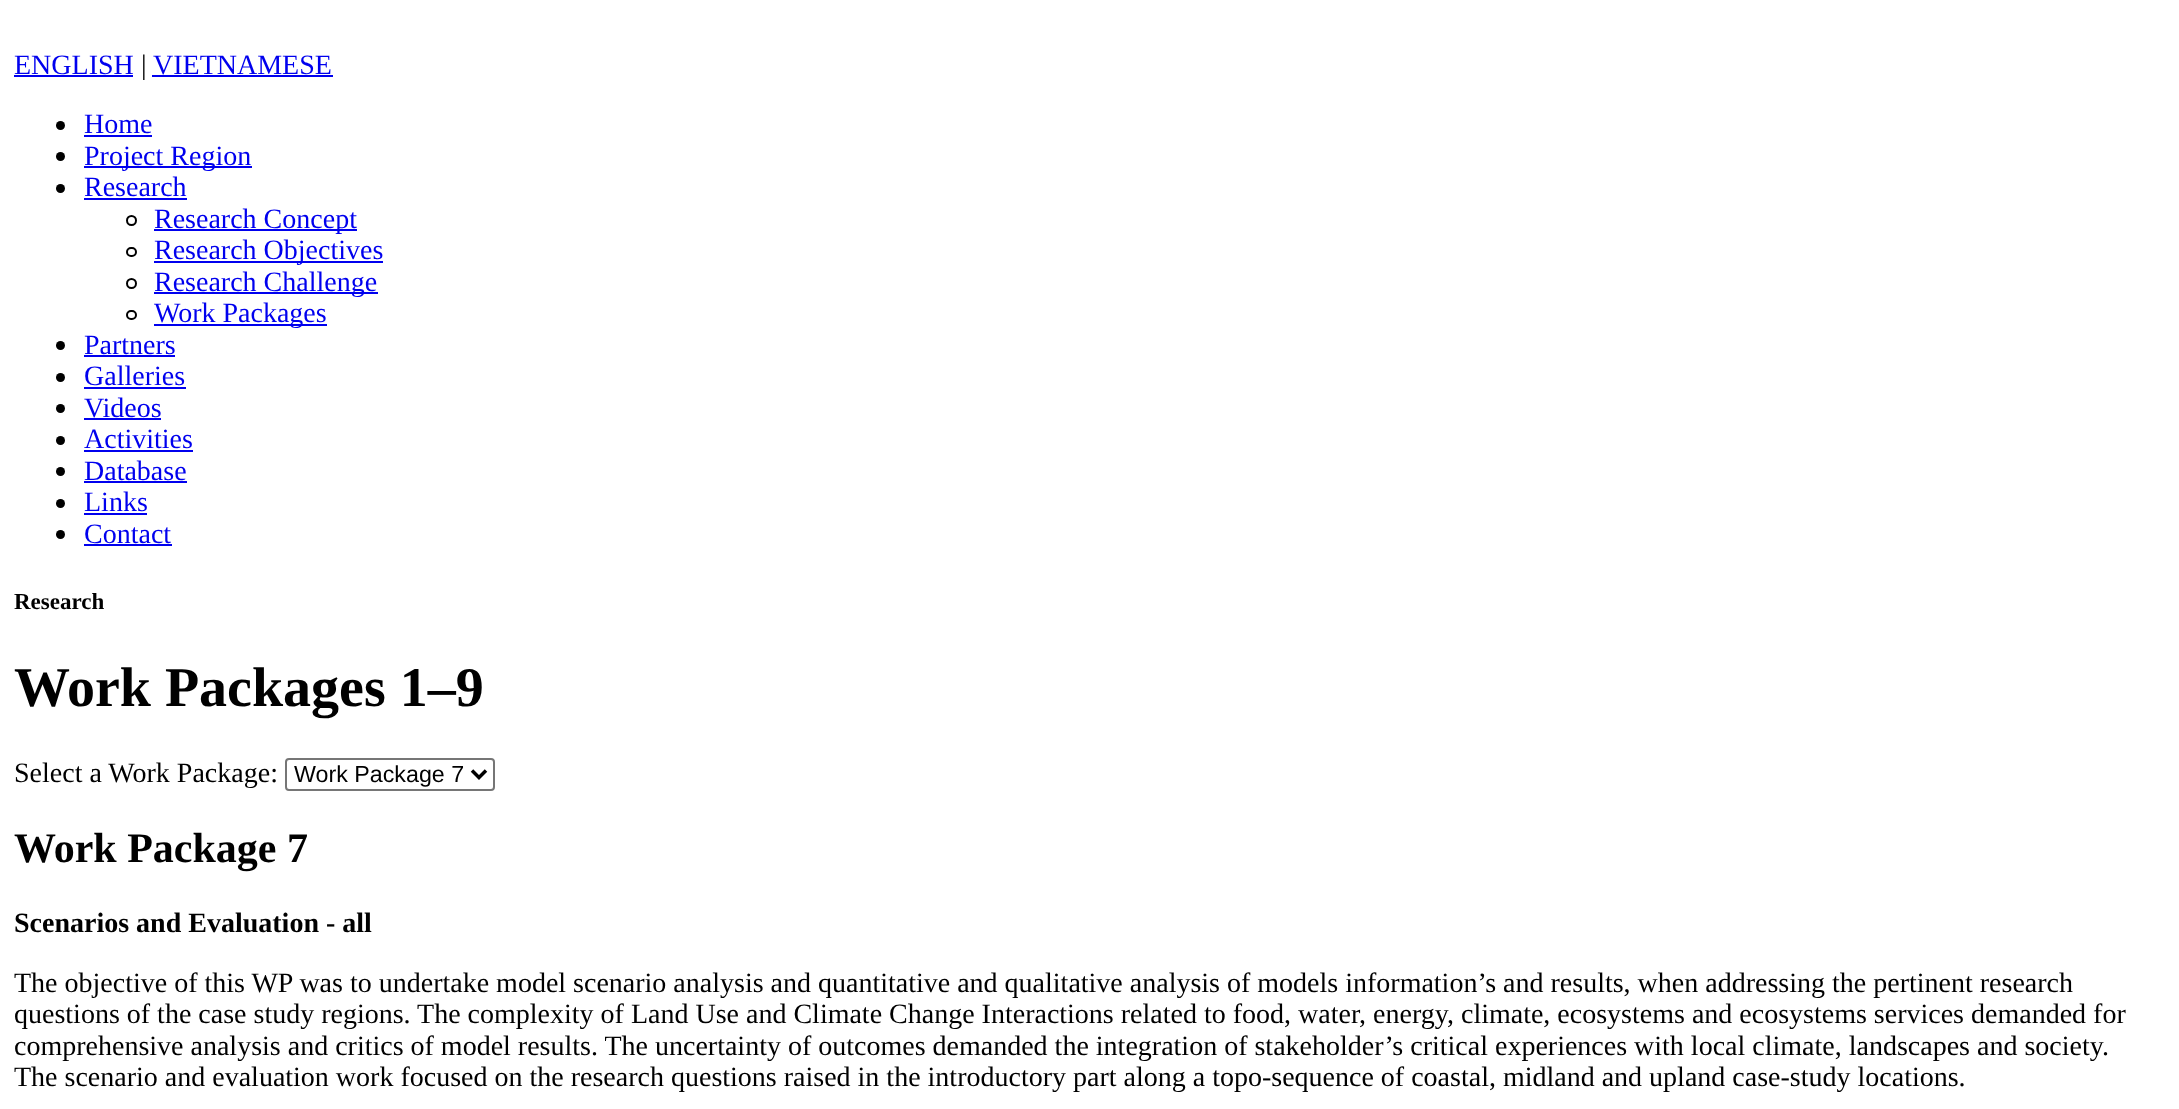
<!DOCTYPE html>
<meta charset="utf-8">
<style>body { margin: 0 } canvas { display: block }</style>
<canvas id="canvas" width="2179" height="1109"></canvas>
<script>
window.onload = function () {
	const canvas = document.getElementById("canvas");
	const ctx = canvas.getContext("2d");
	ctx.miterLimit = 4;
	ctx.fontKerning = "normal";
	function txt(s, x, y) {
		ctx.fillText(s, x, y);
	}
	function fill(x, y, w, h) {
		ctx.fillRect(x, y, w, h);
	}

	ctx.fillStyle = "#FFFFFF";
	fill(0, 0, 2179, 1109);
	ctx.fillStyle = "#0000EE";
	fill(14, 75, 119, 2);
	fill(152, 75, 181, 2);
	ctx.fillStyle = "#000000";
	ctx.beginPath();
	ctx.arc(60.5, 125.5, 4.5, 0, Math.PI * 2);
	ctx.fill();
	ctx.fillStyle = "#0000EE";
	fill(84, 135, 68, 2);
	ctx.fillStyle = "#000000";
	ctx.beginPath();
	ctx.arc(60.5, 156.5, 4.5, 0, Math.PI * 2);
	ctx.fill();
	ctx.fillStyle = "#0000EE";
	fill(84, 166, 168, 2);
	ctx.fillStyle = "#000000";
	ctx.beginPath();
	ctx.arc(60.5, 188.5, 4.5, 0, Math.PI * 2);
	ctx.fill();
	ctx.fillStyle = "#0000EE";
	fill(84, 198, 103, 2);
	ctx.beginPath();
	ctx.arc(131.5, 220.5, 4.5, 0, Math.PI * 2);
	ctx.strokeStyle = "#000000";
	ctx.lineWidth = 2;
	ctx.stroke();
	fill(154, 229, 203, 2);
	ctx.beginPath();
	ctx.roundRect(127, 248, 9, 8, 4);
	ctx.stroke();
	fill(154, 261, 229, 2);
	ctx.beginPath();
	ctx.arc(131.5, 283.5, 4.5, 0, Math.PI * 2);
	ctx.stroke();
	fill(154, 292, 224, 2);
	ctx.beginPath();
	ctx.roundRect(127, 311, 9, 8, 4);
	ctx.stroke();
	fill(154, 324, 173, 2);
	ctx.fillStyle = "#000000";
	ctx.beginPath();
	ctx.arc(60.5, 345.5, 4.5, 0, Math.PI * 2);
	ctx.fill();
	ctx.fillStyle = "#0000EE";
	fill(84, 355, 91, 2);
	ctx.fillStyle = "#000000";
	ctx.beginPath();
	ctx.arc(60.5, 377.5, 4.5, 0, Math.PI * 2);
	ctx.fill();
	ctx.fillStyle = "#0000EE";
	fill(84, 387, 102, 2);
	ctx.fillStyle = "#000000";
	ctx.beginPath();
	ctx.arc(60.5, 408.5, 4.5, 0, Math.PI * 2);
	ctx.fill();
	ctx.fillStyle = "#0000EE";
	fill(84, 418, 77, 2);
	ctx.fillStyle = "#000000";
	ctx.beginPath();
	ctx.arc(60.5, 440.5, 4.5, 0, Math.PI * 2);
	ctx.fill();
	ctx.fillStyle = "#0000EE";
	fill(84, 450, 109, 2);
	ctx.fillStyle = "#000000";
	ctx.beginPath();
	ctx.arc(60.5, 471.5, 4.5, 0, Math.PI * 2);
	ctx.fill();
	ctx.fillStyle = "#0000EE";
	fill(84, 481, 103, 2);
	ctx.fillStyle = "#000000";
	ctx.beginPath();
	ctx.arc(60.5, 503.5, 4.5, 0, Math.PI * 2);
	ctx.fill();
	ctx.fillStyle = "#0000EE";
	fill(84, 513, 63, 2);
	ctx.fillStyle = "#000000";
	ctx.beginPath();
	ctx.arc(60.5, 534.5, 4.5, 0, Math.PI * 2);
	ctx.fill();
	ctx.fillStyle = "#0000EE";
	fill(84, 544, 88, 2);
	ctx.beginPath();
	ctx.roundRect(286, 759, 208, 31, 3);
	ctx.strokeStyle = "#767676";
	ctx.stroke();
	ctx.beginPath();
	ctx.moveTo(472, 770.5);
	ctx.lineTo(479, 777.5);
	ctx.lineTo(486, 770.5);
	ctx.strokeStyle = "#000000";
	ctx.lineWidth = 3.5;
	ctx.stroke();
	ctx.font = "28px Liberation Serif";
	txt("ENGLISH", 14, 74);
	ctx.fillStyle = "#000000";
	txt("|", 141, 74);
	ctx.fillStyle = "#0000EE";
	txt("VIETNAMESE", 153, 74);
	txt("Home", 84, 133);
	txt("Project Region", 84, 165);
	txt("Research", 84, 196);
	txt("Research Concept", 154, 228);
	txt("Research Objectives", 154, 259);
	txt("Research Challenge", 154, 291);
	txt("Work Packages", 154, 322);
	txt("Partners", 84, 354);
	txt("Galleries", 84, 385);
	txt("Videos", 84, 417);
	txt("Activities", 84, 448);
	txt("Database", 84, 480);
	txt("Links", 84, 511);
	txt("Contact", 84, 543);
	ctx.font = "bold 23px Liberation Serif";
	ctx.fillStyle = "#000000";
	txt("Research", 14, 609);
	ctx.font = "bold 56px Liberation Serif";
	txt("Work Packages 1–9", 14, 706);
	ctx.font = "28px Liberation Serif";
	txt("Select a Work Package:", 14, 782);
	ctx.font = "23.25px Liberation Sans";
	txt("Work Package 7", 294, 782);
	ctx.font = "bold 42px Liberation Serif";
	txt("Work Package 7", 14, 862);
	ctx.font = "bold 28px Liberation Serif";
	txt("Scenarios and Evaluation - all", 14, 932);
	ctx.font = "28px Liberation Serif";
	txt("The objective of this WP was to undertake model scenario analysis and quantitative and qualitative analysis of models information’s and results, when addressing the pertinent research", 14, 992);
	txt("questions of the case study regions. The complexity of Land Use and Climate Change Interactions related to food, water, energy, climate, ecosystems and ecosystems services demanded for", 14, 1023);
	txt("comprehensive analysis and critics of model results. The uncertainty of outcomes demanded the integration of stakeholder’s critical experiences with local climate, landscapes and society.", 14, 1055);
	txt("The scenario and evaluation work focused on the research questions raised in the introductory part along a topo-sequence of coastal, midland and upland case-study locations.", 14, 1086);
};
</script>
